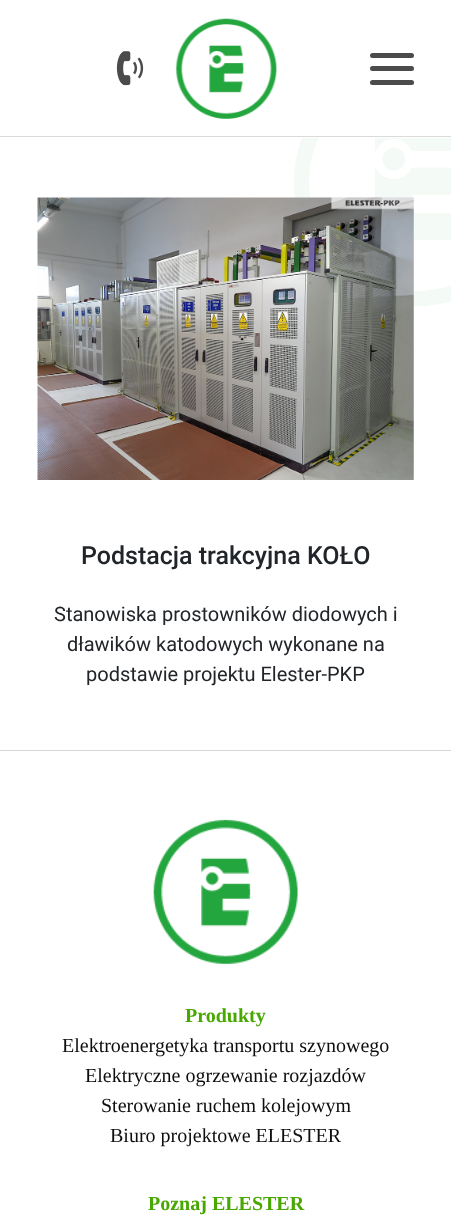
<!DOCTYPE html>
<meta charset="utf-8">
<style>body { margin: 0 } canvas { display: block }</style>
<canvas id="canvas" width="451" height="1230"></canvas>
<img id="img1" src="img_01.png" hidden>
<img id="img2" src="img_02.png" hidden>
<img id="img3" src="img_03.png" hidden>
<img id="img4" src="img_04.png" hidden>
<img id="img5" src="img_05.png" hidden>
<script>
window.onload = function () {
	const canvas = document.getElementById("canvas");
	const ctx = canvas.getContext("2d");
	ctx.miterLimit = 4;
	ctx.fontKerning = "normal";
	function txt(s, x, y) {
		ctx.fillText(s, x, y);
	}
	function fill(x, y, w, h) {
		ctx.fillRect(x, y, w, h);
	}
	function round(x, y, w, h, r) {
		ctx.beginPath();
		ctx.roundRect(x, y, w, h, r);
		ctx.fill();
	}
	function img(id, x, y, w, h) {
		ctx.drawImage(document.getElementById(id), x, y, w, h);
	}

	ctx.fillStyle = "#FFFFFF";
	fill(0, 0, 451, 1230);
	img("img1", 294, 138, 157, 168);
	ctx.fillStyle = "#DADADA";
	fill(0, 136, 451, 1);
	img("img2", 116, 51, 28, 35);
	img("img3", 175, 18, 102, 101);
	ctx.fillStyle = "#4B4B4B";
	round(370, 53, 44, 5, 2.5);
	round(370, 66, 44, 5, 2.5);
	round(370, 80, 44, 5, 2.5);
	img("img4", 37, 197, 377, 283);
	ctx.fillStyle = "#D7D7D7";
	fill(0, 750, 451, 1);
	img("img5", 153, 819, 145, 145);
	ctx.font = "500 25px Roboto";
	ctx.fillStyle = "#212529";
	txt("Podstacja trakcyjna KOŁO", 81, 564);
	ctx.font = "20px Roboto";
	txt("Stanowiska prostowników diodowych i", 54, 621);
	txt("dławików katodowych wykonane na", 67, 651);
	txt("podstawie projektu Elester-PKP", 86, 681);
	ctx.font = "bold 20px Liberation Serif";
	ctx.fillStyle = "#48A701";
	txt("Produkty", 185, 1022);
	ctx.font = "20px Liberation Serif";
	ctx.fillStyle = "#0E0E0E";
	txt("Elektroenergetyka transportu szynowego", 62, 1052);
	txt("Elektryczne ogrzewanie rozjazdów", 85, 1082);
	txt("Sterowanie ruchem kolejowym", 101, 1112);
	txt("Biuro projektowe ELESTER", 110, 1142);
	ctx.font = "bold 20px Liberation Serif";
	ctx.fillStyle = "#48A701";
	txt("Poznaj ELESTER", 148, 1210);
};
</script>
